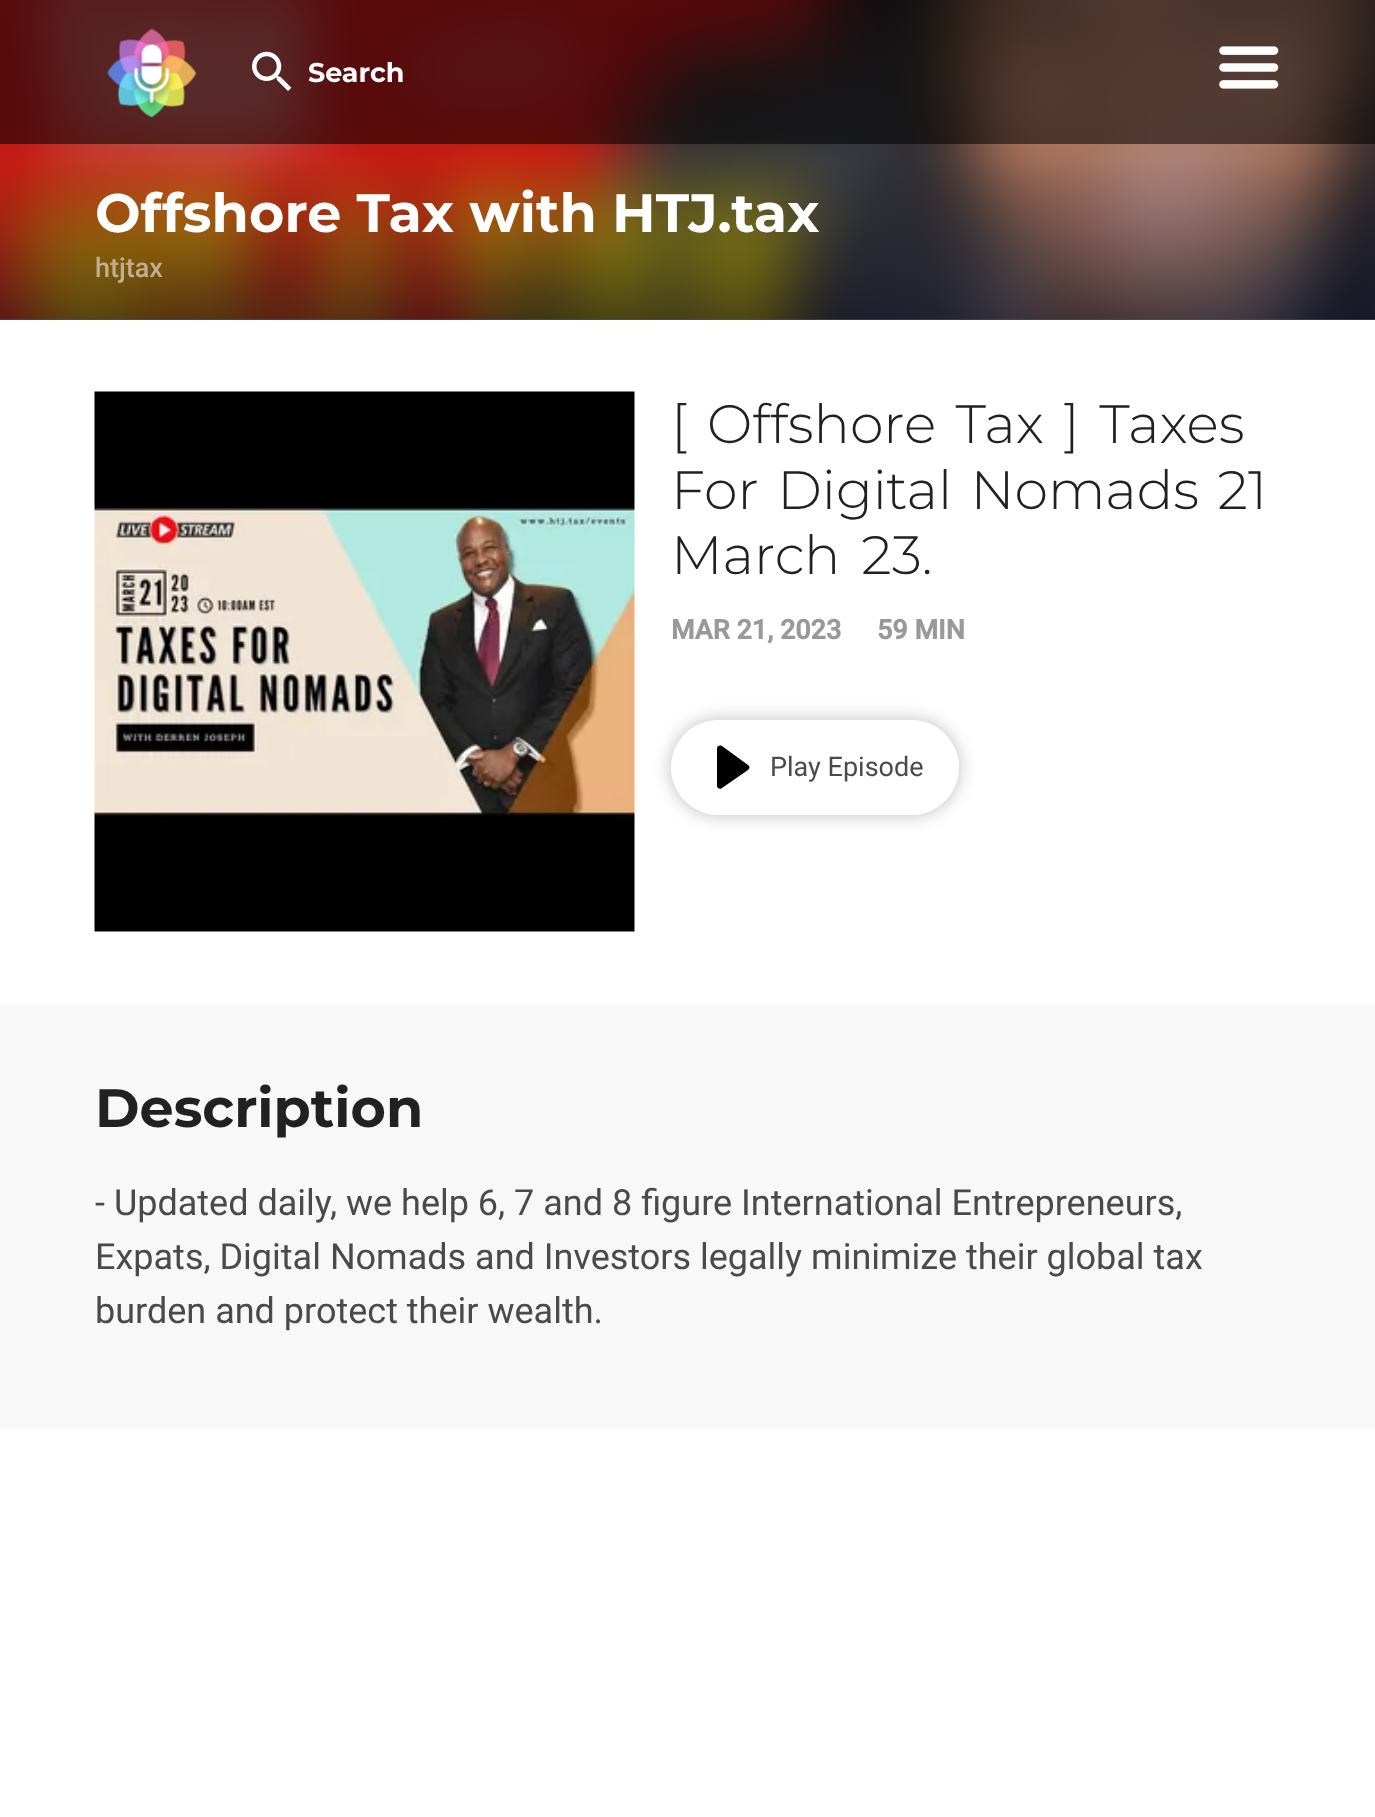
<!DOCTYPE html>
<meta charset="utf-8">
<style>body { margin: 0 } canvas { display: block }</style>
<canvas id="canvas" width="1375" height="1817"></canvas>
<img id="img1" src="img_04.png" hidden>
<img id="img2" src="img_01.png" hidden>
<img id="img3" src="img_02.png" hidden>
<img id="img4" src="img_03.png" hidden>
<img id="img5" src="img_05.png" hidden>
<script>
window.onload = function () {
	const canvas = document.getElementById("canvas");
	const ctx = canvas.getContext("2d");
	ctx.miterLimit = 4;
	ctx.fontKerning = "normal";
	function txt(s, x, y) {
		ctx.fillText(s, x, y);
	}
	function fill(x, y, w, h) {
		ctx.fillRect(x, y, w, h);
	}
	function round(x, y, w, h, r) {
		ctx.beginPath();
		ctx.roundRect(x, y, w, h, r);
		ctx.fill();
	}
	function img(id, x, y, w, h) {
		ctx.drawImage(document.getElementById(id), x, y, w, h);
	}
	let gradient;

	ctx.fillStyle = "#FFFFFF";
	fill(0, 0, 1375, 1817);
	ctx.fillStyle = "#E2E3E4";
	fill(0, 0, 1375, 320);
	img("img1", 0, 0, 1375, 320);
	gradient = ctx.createLinearGradient(689, 0, 689, 320);
	gradient.addColorStop(0, "rgba(9, 9, 9, 0.2)");
	gradient.addColorStop(0.5, "rgba(9, 9, 9, 0.2)");
	gradient.addColorStop(1, "rgba(6, 5, 20, 0.65)");
	ctx.fillStyle = gradient;
	fill(0, 0, 1375, 320);
	ctx.fillStyle = "rgba(0, 0, 0, 0.54)";
	fill(0, 0, 1375, 144);
	img("img2", 107, 28, 90, 90);
	img("img3", 252, 51, 40, 40);
	img("img4", 1219, 46, 60, 43);
	img("img5", 94, 391, 541, 541);
	ctx.fillStyle = "rgba(0, 0, 0, 0.25)";
	ctx.filter = "blur(9px)";
	ctx.beginPath();
	ctx.roundRect(671, 720, 288, 95, 47.5);
	ctx.fill();
	ctx.filter = "none";
	ctx.fillStyle = "#FFFFFF";
	round(671, 720, 288, 95, 47.5);
	ctx.fillStyle = "#000000";
	ctx.beginPath();
	ctx.moveTo(717, 786);
	ctx.lineTo(717, 748);
	ctx.bezierCurveTo(717, 746, 720, 745, 722, 746);
	ctx.lineTo(748, 765);
	ctx.bezierCurveTo(750, 766, 750, 768, 748, 770);
	ctx.lineTo(722, 788);
	ctx.bezierCurveTo(720, 790, 717, 788, 717, 786);
	ctx.fill("evenodd");
	ctx.fillStyle = "#F8F8F8";
	fill(0, 1004, 1375, 425);
	ctx.font = "bold 27px Montserrat";
	ctx.fillStyle = "#FFFFFF";
	txt("Search", 308, 82);
	ctx.font = "bold 54px Montserrat";
	txt("Offshore Tax with HTJ.tax", 95, 232);
	ctx.font = "500 27px Roboto";
	ctx.fillStyle = "#C1B090";
	txt("htjtax", 95, 277);
	ctx.wordSpacing = "5.5px";
	ctx.font = "300 54px Montserrat";
	ctx.fillStyle = "#212121";
	txt("[ Offshore Tax ] Taxes", 671, 443);
	ctx.wordSpacing = "4.5px";
	txt("For Digital Nomads 21", 671, 509);
	ctx.wordSpacing = "7px";
	txt("March 23.", 671, 574);
	ctx.wordSpacing = "0px";
	ctx.font = "bold 27px Roboto";
	ctx.fillStyle = "#999999";
	txt("MAR 21, 2023", 671, 639);
	txt("59 MIN", 877, 639);
	ctx.font = "27px Roboto";
	ctx.fillStyle = "#4A4A4A";
	txt("Play Episode", 770, 776);
	ctx.font = "bold 54px Montserrat";
	ctx.fillStyle = "#212121";
	txt("Description", 95, 1127);
	ctx.font = "36px Roboto";
	ctx.fillStyle = "#4A4A4A";
	txt("- Updated daily, we help 6, 7 and 8 figure International Entrepreneurs,", 95, 1215);
	txt("Expats, Digital Nomads and Investors legally minimize their global tax", 95, 1269);
	txt("burden and protect their wealth.", 95, 1323);
};
</script>
